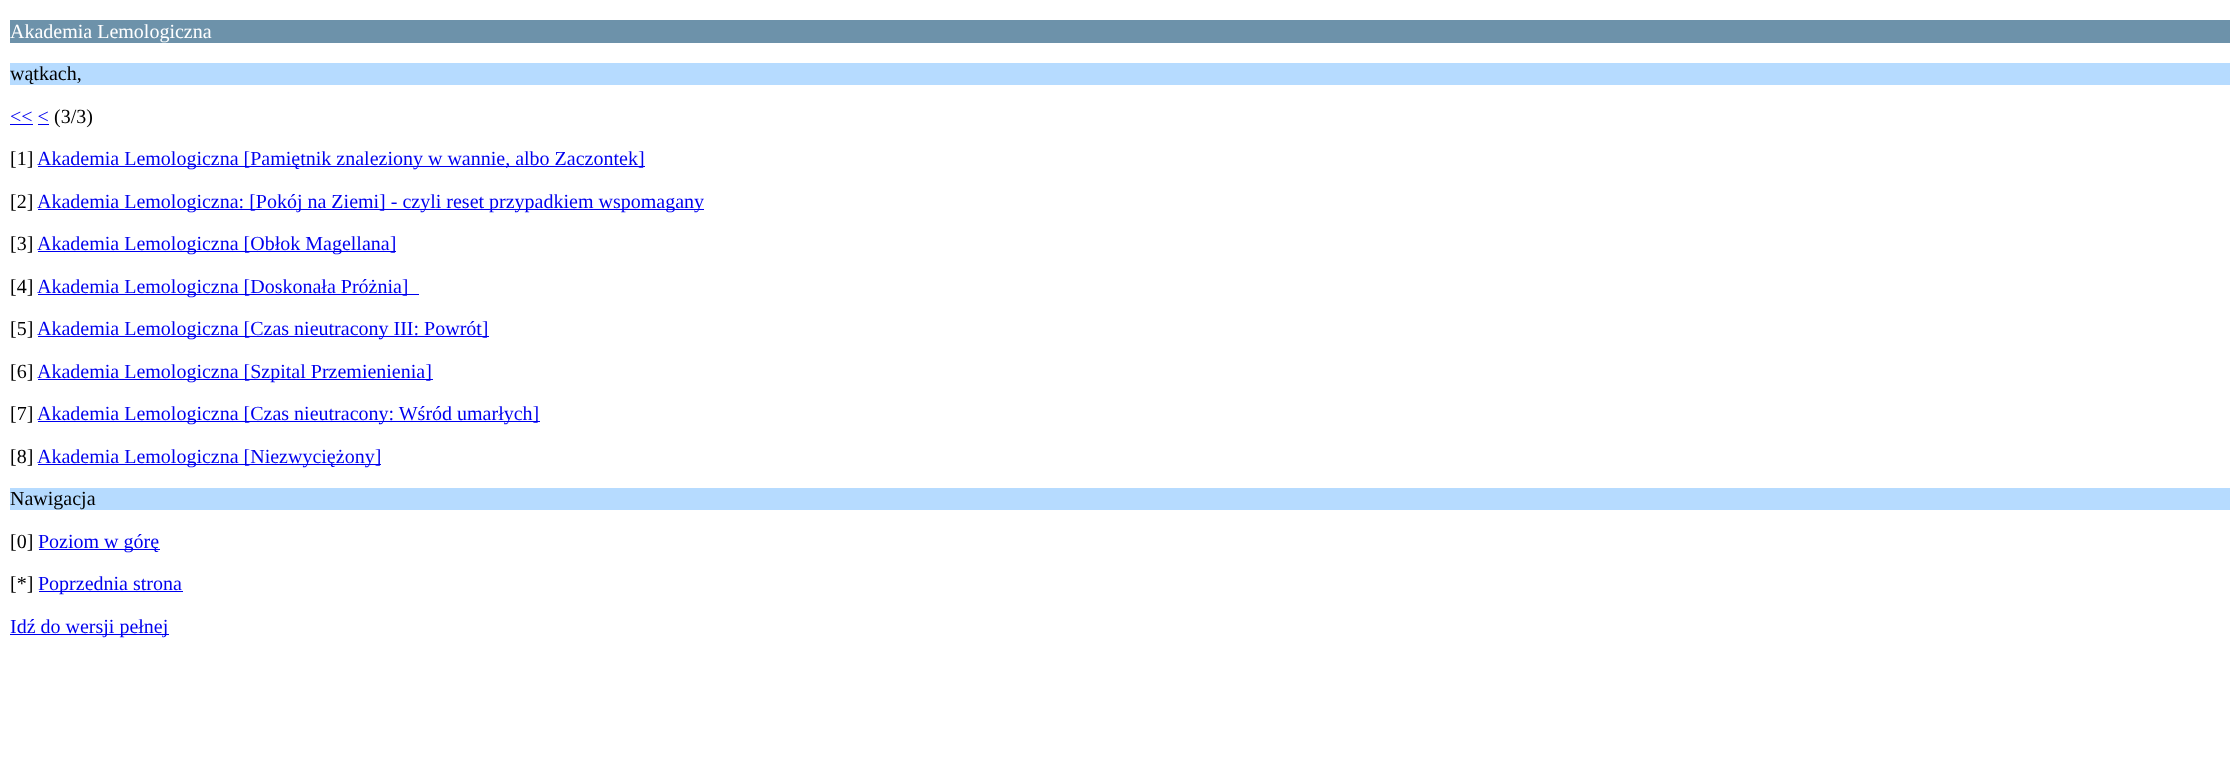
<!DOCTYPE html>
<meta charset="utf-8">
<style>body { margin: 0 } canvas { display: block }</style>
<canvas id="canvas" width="2239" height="772"></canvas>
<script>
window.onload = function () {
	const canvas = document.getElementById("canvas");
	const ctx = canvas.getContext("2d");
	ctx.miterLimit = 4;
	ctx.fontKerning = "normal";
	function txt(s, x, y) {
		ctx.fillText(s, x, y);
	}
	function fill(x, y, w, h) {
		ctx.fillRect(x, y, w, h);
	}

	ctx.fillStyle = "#FFFFFF";
	fill(0, 0, 2239, 772);
	ctx.fillStyle = "#6D92AA";
	fill(10, 20, 2220, 23);
	ctx.fillStyle = "#B6DBFF";
	fill(10, 63, 2220, 22);
	ctx.fillStyle = "#0000EE";
	fill(10, 124, 23, 1);
	fill(38, 124, 11, 1);
	fill(38, 166, 607, 1);
	fill(38, 209, 666, 1);
	fill(38, 251, 358, 1);
	fill(38, 294, 381, 1);
	fill(38, 336, 451, 1);
	fill(38, 379, 395, 1);
	fill(38, 421, 502, 1);
	fill(38, 464, 343, 1);
	ctx.fillStyle = "#B6DBFF";
	fill(10, 488, 2220, 22);
	ctx.fillStyle = "#0000EE";
	fill(39, 549, 121, 1);
	fill(39, 591, 144, 1);
	fill(10, 634, 159, 1);
	ctx.font = "20px Liberation Serif";
	ctx.fillStyle = "#FFFFFF";
	txt("Akademia Lemologiczna", 10, 38);
	ctx.fillStyle = "#000000";
	txt("wątkach,", 10, 80);
	ctx.fillStyle = "#0000EE";
	txt("<< <", 10, 123);
	ctx.fillStyle = "#000000";
	txt("(3/3)", 54, 123);
	txt("[1]", 10, 165);
	ctx.fillStyle = "#0000EE";
	txt("Akademia Lemologiczna [Pamiętnik znaleziony w wannie, albo Zaczontek]", 37, 165);
	ctx.fillStyle = "#000000";
	txt("[2]", 10, 208);
	ctx.fillStyle = "#0000EE";
	txt("Akademia Lemologiczna: [Pokój na Ziemi] - czyli reset przypadkiem wspomagany", 37, 208);
	ctx.fillStyle = "#000000";
	txt("[3]", 10, 250);
	ctx.fillStyle = "#0000EE";
	txt("Akademia Lemologiczna [Obłok Magellana]", 37, 250);
	ctx.fillStyle = "#000000";
	txt("[4]", 10, 293);
	ctx.fillStyle = "#0000EE";
	txt("Akademia Lemologiczna [Doskonała Próżnia]", 37, 293);
	ctx.fillStyle = "#000000";
	txt("[5]", 10, 335);
	ctx.fillStyle = "#0000EE";
	txt("Akademia Lemologiczna [Czas nieutracony III: Powrót]", 37, 335);
	ctx.fillStyle = "#000000";
	txt("[6]", 10, 378);
	ctx.fillStyle = "#0000EE";
	txt("Akademia Lemologiczna [Szpital Przemienienia]", 37, 378);
	ctx.fillStyle = "#000000";
	txt("[7]", 10, 420);
	ctx.fillStyle = "#0000EE";
	txt("Akademia Lemologiczna [Czas nieutracony: Wśród umarłych]", 37, 420);
	ctx.fillStyle = "#000000";
	txt("[8]", 10, 463);
	ctx.fillStyle = "#0000EE";
	txt("Akademia Lemologiczna [Niezwyciężony]", 37, 463);
	ctx.fillStyle = "#000000";
	txt("Nawigacja", 10, 505);
	txt("[0]", 10, 548);
	ctx.fillStyle = "#0000EE";
	txt("Poziom w górę", 38, 548);
	ctx.fillStyle = "#000000";
	txt("[*]", 10, 590);
	ctx.fillStyle = "#0000EE";
	txt("Poprzednia strona", 38, 590);
	txt("Idź do wersji pełnej", 10, 633);
};
</script>
